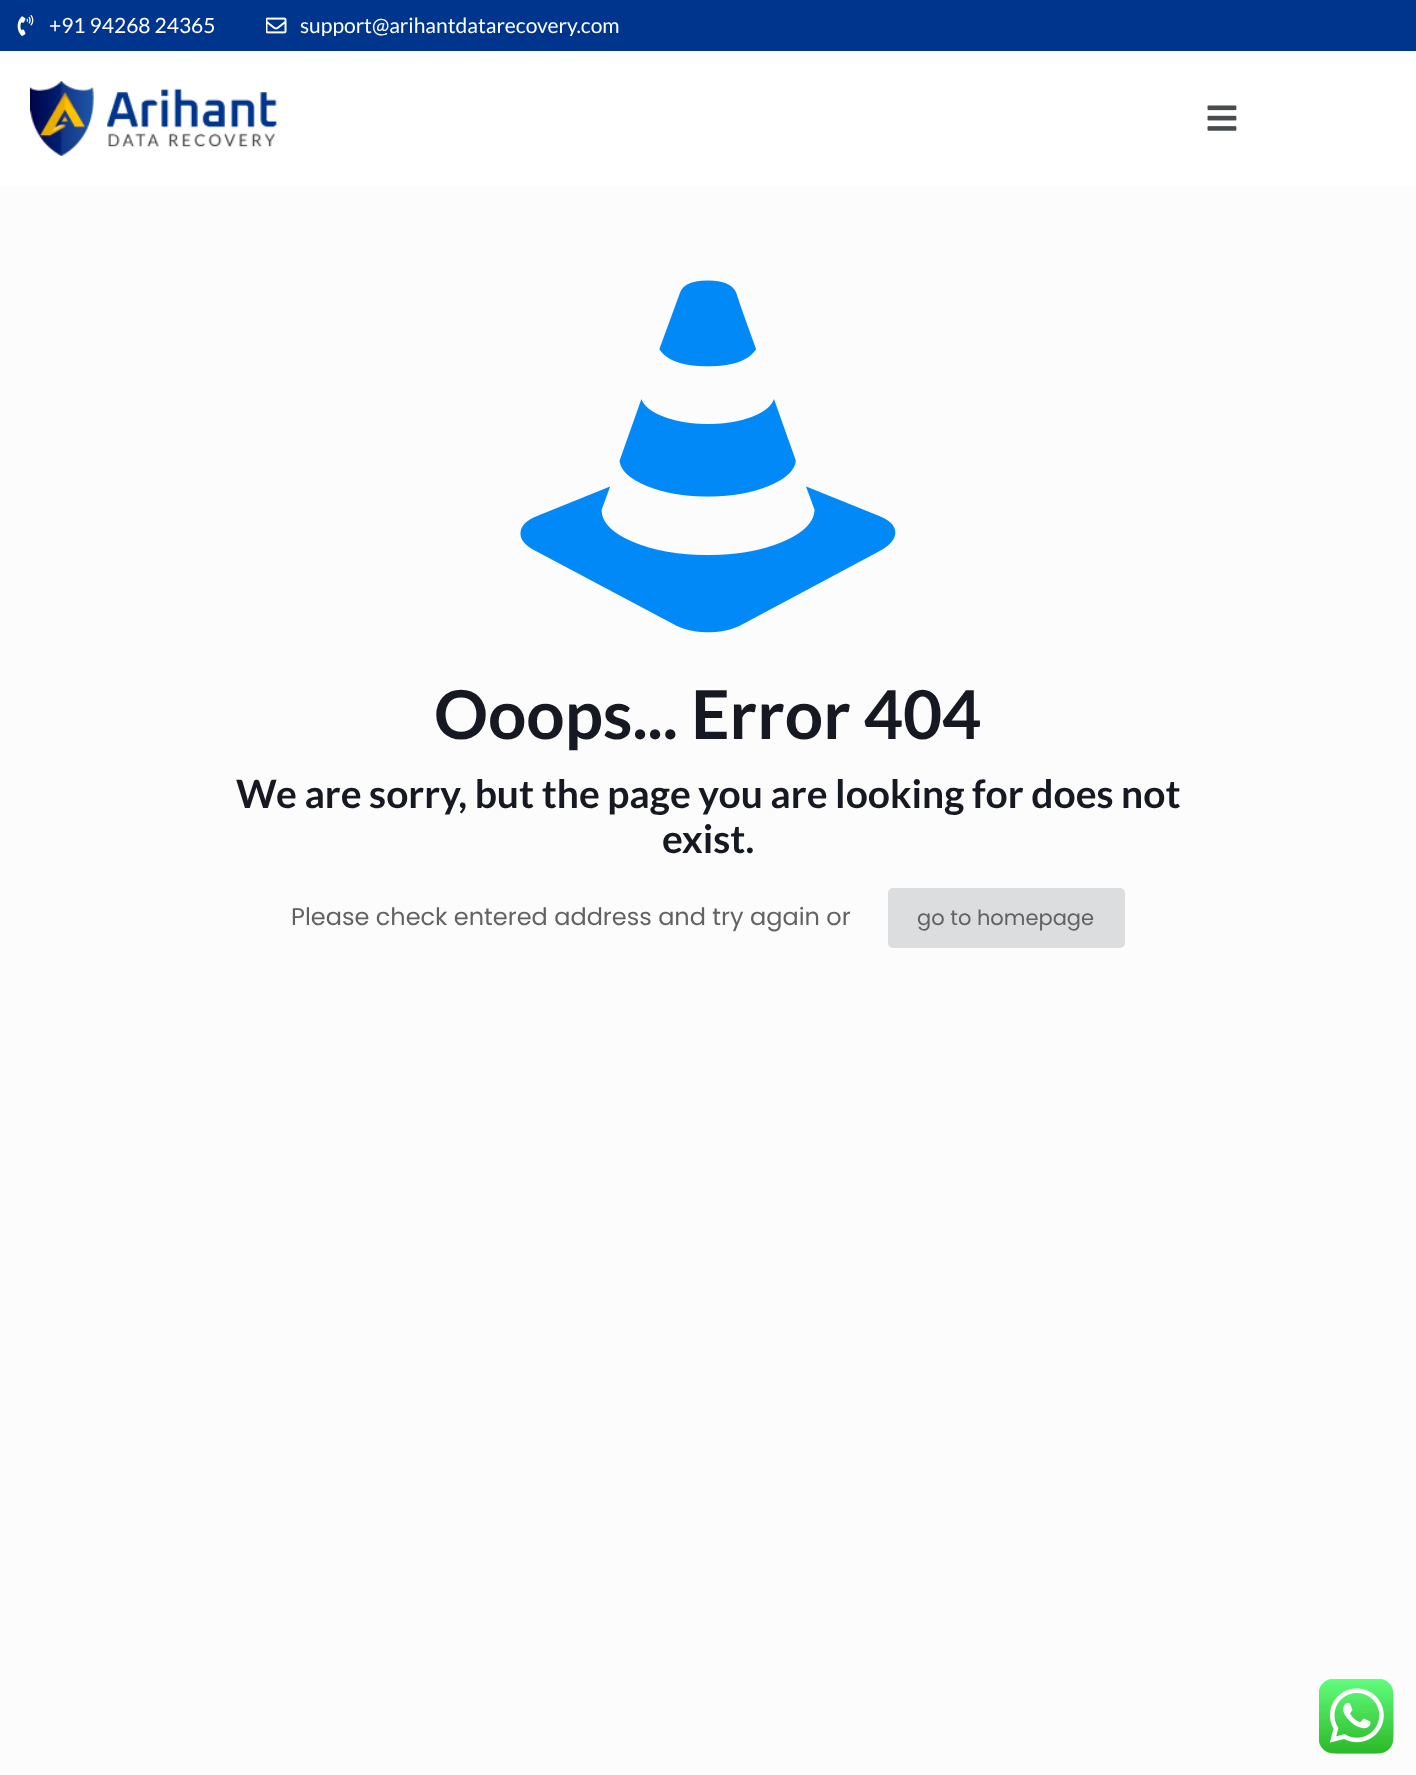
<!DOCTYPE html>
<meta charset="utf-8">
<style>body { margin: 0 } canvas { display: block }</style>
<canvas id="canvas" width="1416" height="1775"></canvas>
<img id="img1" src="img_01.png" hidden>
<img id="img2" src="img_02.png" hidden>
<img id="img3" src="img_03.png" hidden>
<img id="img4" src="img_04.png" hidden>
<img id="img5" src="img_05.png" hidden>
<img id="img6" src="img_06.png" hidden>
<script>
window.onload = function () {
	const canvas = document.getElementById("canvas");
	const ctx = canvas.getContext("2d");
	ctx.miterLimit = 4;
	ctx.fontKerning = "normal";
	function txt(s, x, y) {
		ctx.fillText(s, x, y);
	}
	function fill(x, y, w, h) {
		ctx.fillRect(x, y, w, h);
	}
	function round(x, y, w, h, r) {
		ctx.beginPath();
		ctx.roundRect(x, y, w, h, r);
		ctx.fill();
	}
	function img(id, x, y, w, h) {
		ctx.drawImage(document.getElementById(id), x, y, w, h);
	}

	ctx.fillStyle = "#FCFCFC";
	fill(0, 0, 1416, 1775);
	ctx.fillStyle = "#00358D";
	fill(0, 0, 1416, 51);
	img("img1", 17, 15, 17, 21);
	img("img2", 266, 17, 21, 17);
	ctx.fillStyle = "#FFFFFF";
	fill(0, 51, 1416, 135);
	img("img3", 30, 81, 247, 75);
	img("img4", 1207, 105, 30, 26);
	img("img5", 520, 280, 376, 353);
	ctx.fillStyle = "#DBDDDF";
	round(888, 888, 237, 60, 5);
	img("img6", 1319, 1679, 75, 75);
	ctx.font = "21px Lato";
	ctx.fillStyle = "#FFFFFF";
	txt("+91 94268 24365", 49, 33);
	ctx.save();
	ctx.beginPath();
	ctx.rect(15, 15, 605, 21);
	ctx.clip();
	txt("support@arihantdatarecovery.com", 300, 33);
	ctx.restore();
	ctx.font = "bold 67.5px Lato";
	ctx.fillStyle = "#161922";
	txt("Ooops... Error 404", 434, 739);
	ctx.font = "bold 39px Lato";
	txt("We are sorry, but the page you are looking for does not", 236, 808);
	txt("exist.", 662, 853);
	ctx.font = "24px Poppins";
	ctx.fillStyle = "#626262";
	txt("Please check entered address and try again or", 291, 925);
	ctx.font = "21px Poppins";
	txt("go to homepage", 917, 925);
};
</script>
